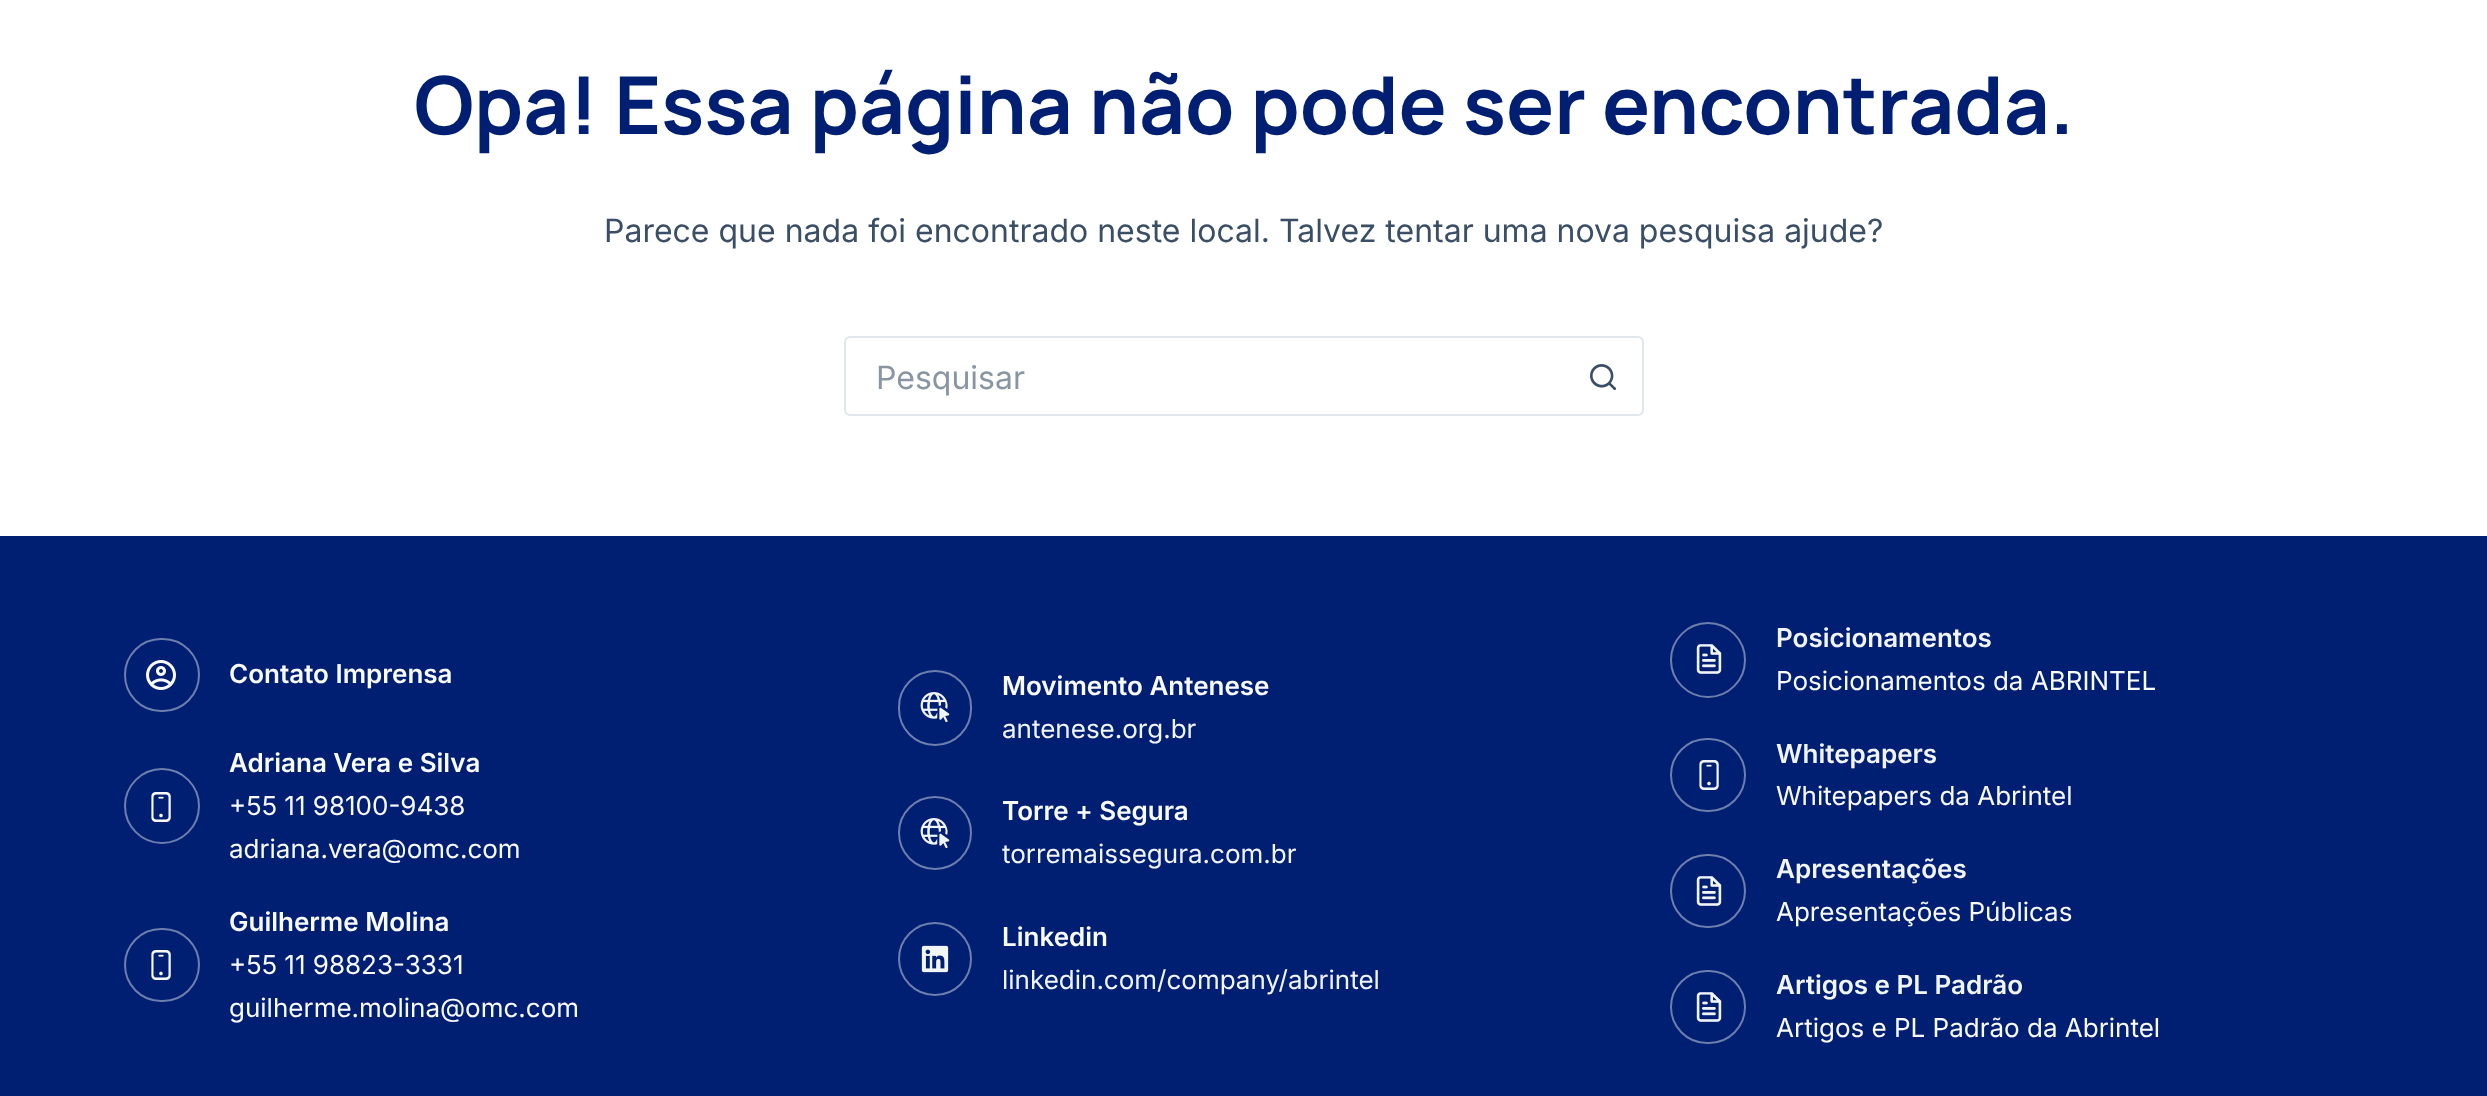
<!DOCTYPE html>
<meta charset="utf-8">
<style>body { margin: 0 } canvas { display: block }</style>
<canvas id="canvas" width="2487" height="1096"></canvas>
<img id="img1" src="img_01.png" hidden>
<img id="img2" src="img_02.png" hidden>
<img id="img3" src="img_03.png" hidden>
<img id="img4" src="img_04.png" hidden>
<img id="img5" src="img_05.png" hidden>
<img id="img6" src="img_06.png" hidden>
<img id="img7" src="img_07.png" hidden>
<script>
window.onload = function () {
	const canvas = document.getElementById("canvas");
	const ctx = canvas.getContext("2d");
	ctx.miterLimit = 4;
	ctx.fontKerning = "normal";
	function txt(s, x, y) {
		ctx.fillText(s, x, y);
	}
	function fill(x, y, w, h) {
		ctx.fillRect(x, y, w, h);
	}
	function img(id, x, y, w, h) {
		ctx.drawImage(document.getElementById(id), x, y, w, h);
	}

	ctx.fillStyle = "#FFFFFF";
	fill(0, 0, 2487, 1096);
	ctx.fillStyle = "#E1E8ED";
	ctx.beginPath();
	ctx.moveTo(850, 336);
	ctx.lineTo(1564, 336);
	ctx.lineTo(1564, 416);
	ctx.lineTo(850, 416);
	ctx.bezierCurveTo(847, 416, 844, 413, 844, 410);
	ctx.lineTo(844, 342);
	ctx.bezierCurveTo(844, 339, 847, 336, 850, 336);
	ctx.closePath();
	ctx.moveTo(850, 338);
	ctx.lineTo(1564, 338);
	ctx.lineTo(1564, 414);
	ctx.lineTo(850, 414);
	ctx.bezierCurveTo(848, 414, 846, 412, 846, 410);
	ctx.lineTo(846, 342);
	ctx.bezierCurveTo(846, 340, 848, 338, 850, 338);
	ctx.closePath();
	ctx.fill("evenodd");
	ctx.beginPath();
	ctx.moveTo(1564, 336);
	ctx.lineTo(1638, 336);
	ctx.bezierCurveTo(1641, 336, 1644, 339, 1644, 342);
	ctx.lineTo(1644, 410);
	ctx.bezierCurveTo(1644, 413, 1641, 416, 1638, 416);
	ctx.lineTo(1564, 416);
	ctx.closePath();
	ctx.moveTo(1564, 338);
	ctx.lineTo(1638, 338);
	ctx.bezierCurveTo(1640, 338, 1642, 340, 1642, 342);
	ctx.lineTo(1642, 410);
	ctx.bezierCurveTo(1642, 412, 1640, 414, 1638, 414);
	ctx.lineTo(1564, 414);
	ctx.closePath();
	ctx.fill("evenodd");
	img("img1", 1590, 364, 26, 26);
	ctx.fillStyle = "#001F73";
	fill(0, 536, 2487, 560);
	ctx.beginPath();
	ctx.roundRect(125, 639, 74, 72, 36);
	ctx.strokeStyle = "#6D7FAC";
	ctx.lineWidth = 2;
	ctx.stroke();
	img("img2", 146, 660, 30, 30);
	ctx.beginPath();
	ctx.arc(162, 806, 37, 0, Math.PI * 2);
	ctx.stroke();
	img("img3", 151, 792, 20, 30);
	ctx.beginPath();
	ctx.roundRect(125, 929, 74, 72, 36);
	ctx.stroke();
	img("img3", 151, 950, 20, 30);
	ctx.beginPath();
	ctx.roundRect(899, 671, 72, 74, 36);
	ctx.stroke();
	img("img4", 920, 692, 30, 30);
	ctx.beginPath();
	ctx.arc(935, 833, 36, 0, Math.PI * 2);
	ctx.stroke();
	img("img4", 920, 818, 30, 30);
	ctx.beginPath();
	ctx.arc(935, 959, 36, 0, Math.PI * 2);
	ctx.stroke();
	img("img5", 921, 945, 28, 28);
	ctx.beginPath();
	ctx.arc(1708, 660, 37, 0, Math.PI * 2);
	ctx.stroke();
	img("img6", 1696, 644, 26, 30);
	ctx.beginPath();
	ctx.roundRect(1671, 739, 74, 72, 36);
	ctx.stroke();
	img("img7", 1699, 760, 20, 30);
	ctx.beginPath();
	ctx.roundRect(1671, 855, 74, 72, 36);
	ctx.stroke();
	img("img6", 1696, 876, 26, 30);
	ctx.beginPath();
	ctx.roundRect(1671, 971, 74, 72, 36);
	ctx.stroke();
	img("img6", 1696, 992, 26, 30);
	ctx.font = "bold 80px Manrope";
	txt("Opa! Essa página não pode ser encontrada.", 414, 134);
	ctx.font = "32px Inter";
	ctx.fillStyle = "#3A4F66";
	txt("Parece que nada foi encontrado neste local. Talvez tentar uma nova pesquisa ajude?", 604, 242);
	ctx.fillStyle = "#8995A3";
	txt("Pesquisar", 876, 389);
	ctx.font = "600 26px Inter";
	ctx.fillStyle = "#FAFBFC";
	txt("Contato Imprensa", 229, 683);
	txt("Adriana Vera e Silva", 229, 772);
	ctx.font = "26px Inter";
	txt("+55 11 98100-9438", 229, 815);
	txt("adriana.vera@omc.com", 229, 858);
	ctx.font = "600 26px Inter";
	txt("Guilherme Molina", 229, 931);
	ctx.font = "26px Inter";
	txt("+55 11 98823-3331", 229, 974);
	txt("guilherme.molina@omc.com", 229, 1017);
	ctx.font = "600 26px Inter";
	txt("Movimento Antenese", 1002, 695);
	ctx.font = "26px Inter";
	ctx.fillStyle = "#F2F5F7";
	txt("antenese.org.br", 1002, 738);
	ctx.font = "600 26px Inter";
	ctx.fillStyle = "#FAFBFC";
	txt("Torre + Segura", 1002, 820);
	ctx.font = "26px Inter";
	ctx.fillStyle = "#F2F5F7";
	txt("torremaissegura.com.br", 1002, 863);
	ctx.font = "600 26px Inter";
	ctx.fillStyle = "#FAFBFC";
	txt("Linkedin", 1002, 946);
	ctx.font = "26px Inter";
	ctx.fillStyle = "#F2F5F7";
	txt("linkedin.com/company/abrintel", 1002, 989);
	ctx.font = "600 26px Inter";
	txt("Posicionamentos", 1776, 647);
	ctx.font = "26px Inter";
	ctx.fillStyle = "#FAFBFC";
	txt("Posicionamentos da ABRINTEL", 1776, 690);
	ctx.font = "600 26px Inter";
	ctx.fillStyle = "#F2F5F7";
	txt("Whitepapers", 1776, 763);
	ctx.font = "26px Inter";
	ctx.fillStyle = "#FAFBFC";
	txt("Whitepapers da Abrintel", 1776, 805);
	ctx.font = "600 26px Inter";
	ctx.fillStyle = "#F2F5F7";
	txt("Apresentações", 1776, 878);
	ctx.font = "26px Inter";
	ctx.fillStyle = "#FAFBFC";
	txt("Apresentações Públicas", 1776, 921);
	ctx.font = "600 26px Inter";
	ctx.fillStyle = "#F2F5F7";
	txt("Artigos e PL Padrão", 1776, 994);
	ctx.font = "26px Inter";
	ctx.fillStyle = "#FAFBFC";
	txt("Artigos e PL Padrão da Abrintel", 1776, 1037);
};
</script>
